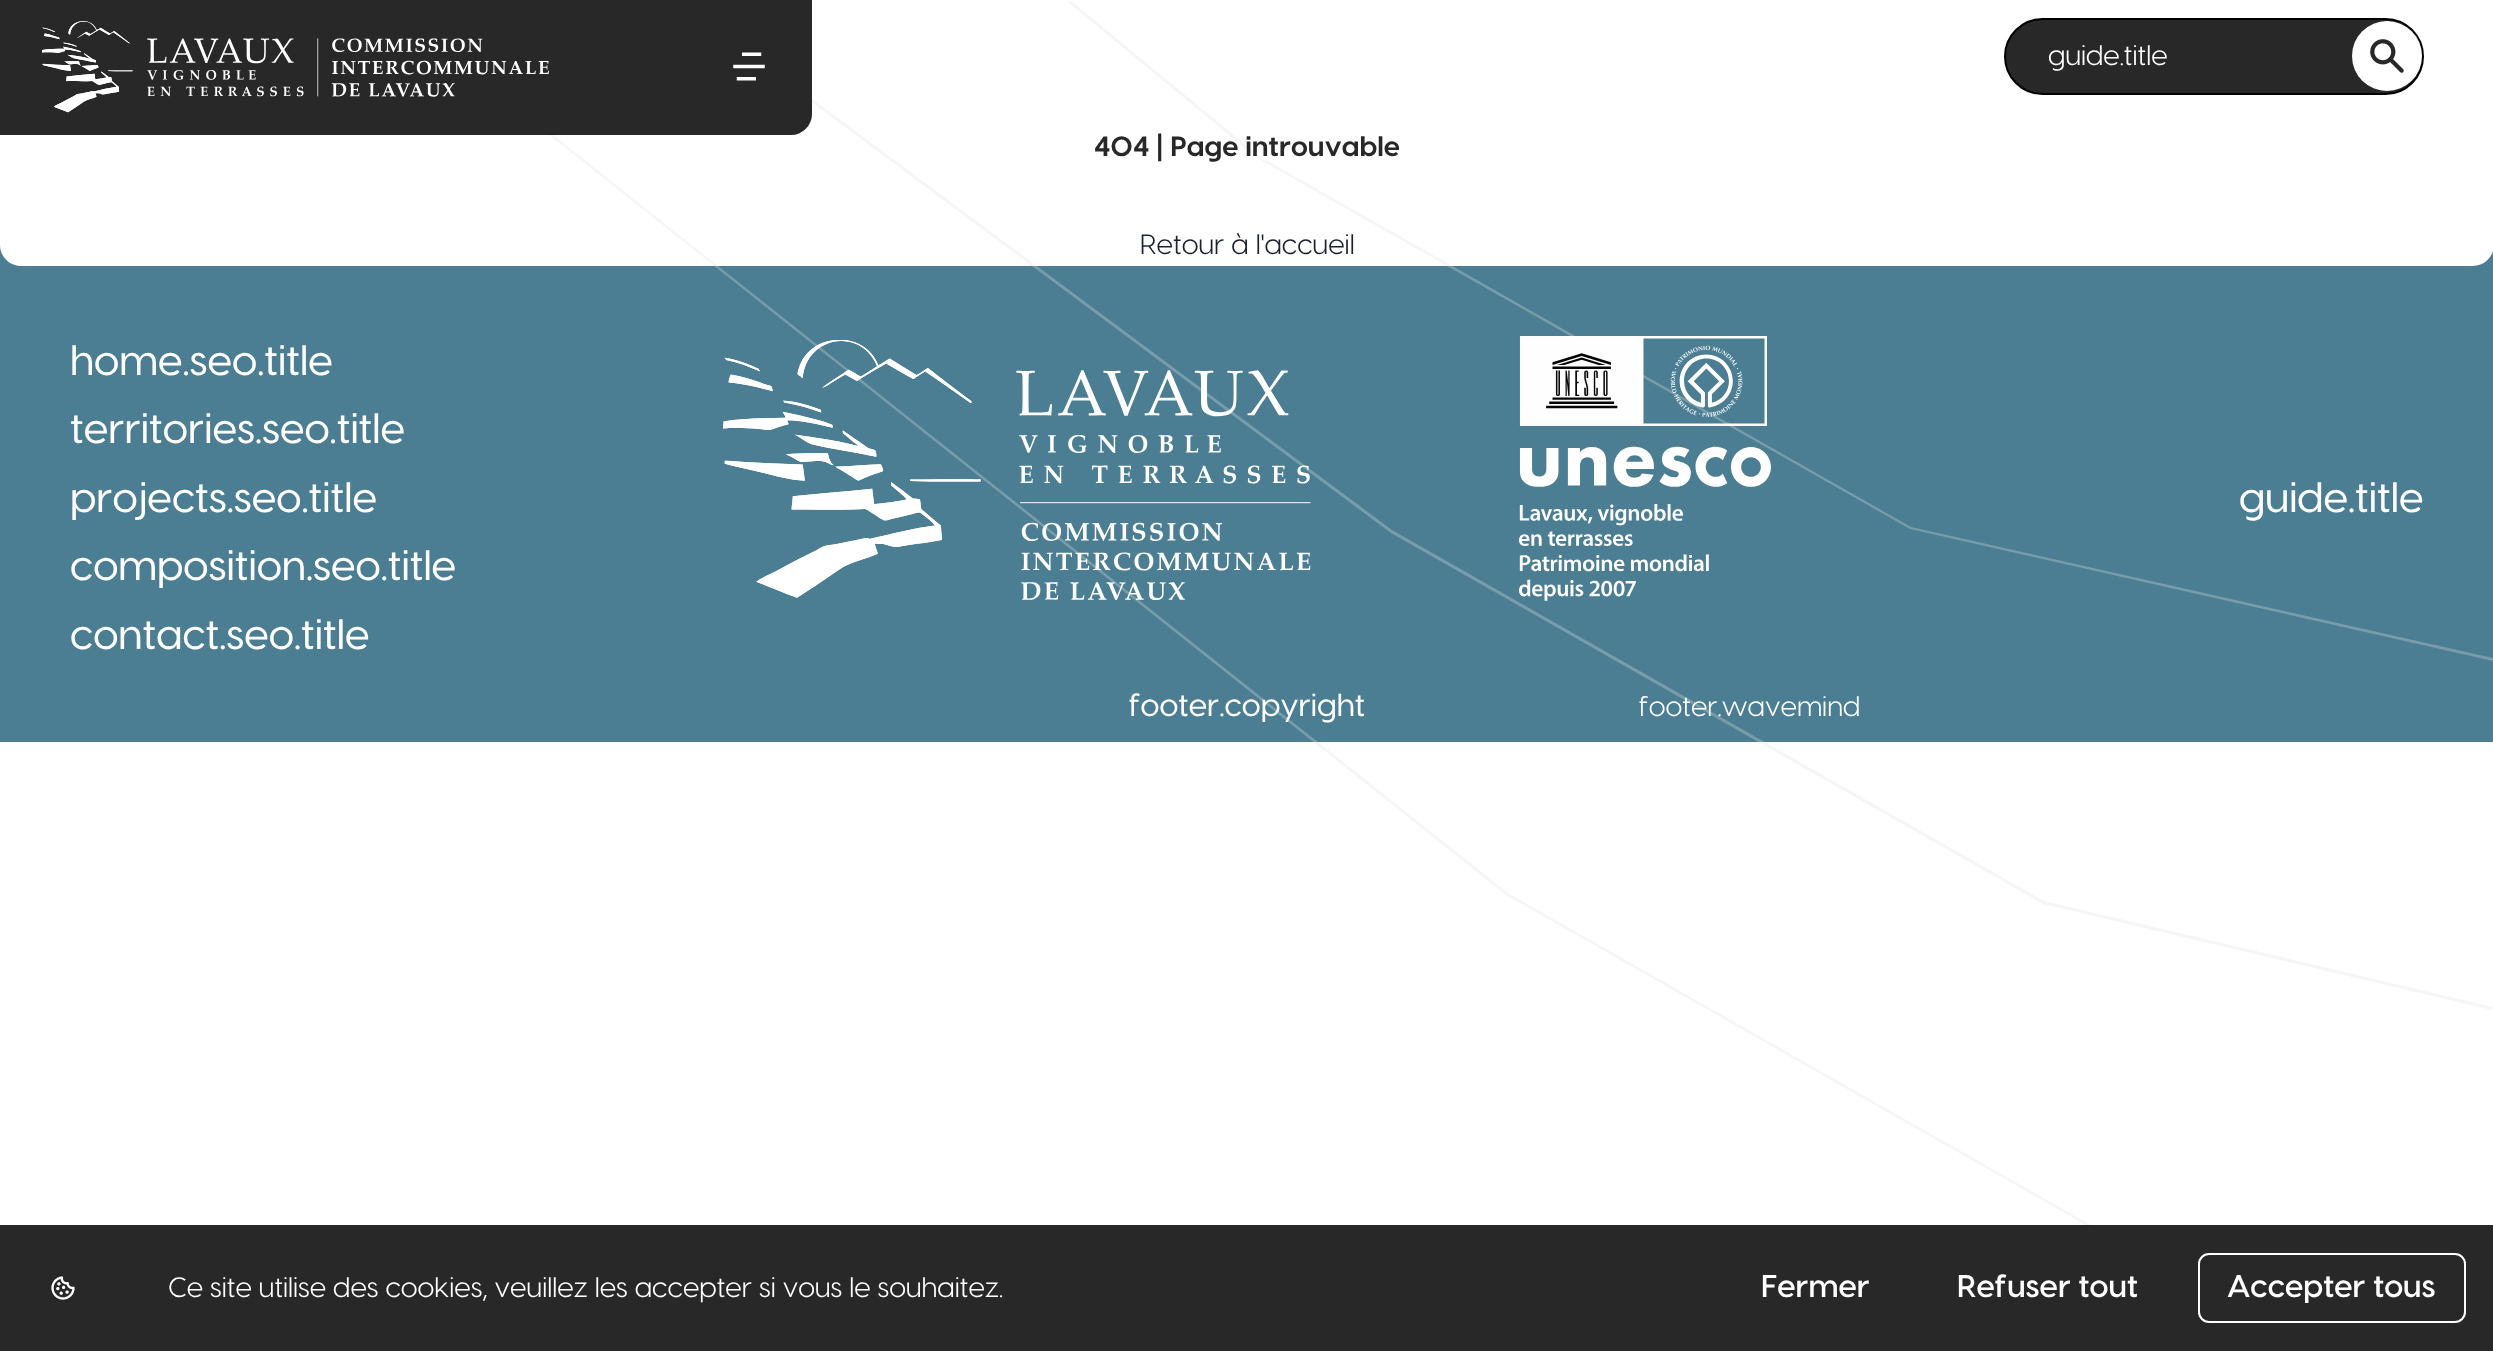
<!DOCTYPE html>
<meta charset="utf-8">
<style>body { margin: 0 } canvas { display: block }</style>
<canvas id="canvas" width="2493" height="1351"></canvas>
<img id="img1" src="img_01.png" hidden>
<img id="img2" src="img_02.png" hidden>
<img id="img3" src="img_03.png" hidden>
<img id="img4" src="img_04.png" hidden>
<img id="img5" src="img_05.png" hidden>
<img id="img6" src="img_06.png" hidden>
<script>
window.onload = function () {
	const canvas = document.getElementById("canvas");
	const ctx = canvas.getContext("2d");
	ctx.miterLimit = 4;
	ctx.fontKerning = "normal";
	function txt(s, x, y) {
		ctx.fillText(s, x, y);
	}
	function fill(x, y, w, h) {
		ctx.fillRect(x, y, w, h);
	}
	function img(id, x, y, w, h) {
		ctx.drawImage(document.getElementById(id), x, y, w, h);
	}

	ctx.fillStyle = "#FFFFFF";
	fill(0, 0, 2493, 1351);
	ctx.fillStyle = "#4B7E93";
	fill(0, 245, 2493, 497);
	ctx.fillStyle = "#FFFFFF";
	ctx.beginPath();
	ctx.moveTo(0, 0);
	ctx.lineTo(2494, 0);
	ctx.lineTo(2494, 245);
	ctx.bezierCurveTo(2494, 256.5, 2484.5, 266, 2473, 266);
	ctx.lineTo(21, 266);
	ctx.bezierCurveTo(9.5, 266, 0, 256.5, 0, 245);
	ctx.closePath();
	ctx.fill();
	ctx.fillStyle = "rgba(225, 225, 225, 0.3)";
	ctx.beginPath();
	ctx.moveTo(1392, 530);
	ctx.lineTo(2044, 901);
	ctx.lineTo(2493, 1007);
	ctx.lineTo(2492, 1010);
	ctx.lineTo(2043, 904);
	ctx.lineTo(1391, 533);
	ctx.lineTo(677, 2);
	ctx.lineTo(679, 0);
	ctx.closePath();
	ctx.moveTo(1508, 893);
	ctx.lineTo(2159, 1264);
	ctx.lineTo(2493, 1347);
	ctx.lineTo(2492, 1350);
	ctx.lineTo(2158, 1266);
	ctx.lineTo(1506, 895);
	ctx.lineTo(382, 2);
	ctx.lineTo(383, 0);
	ctx.closePath();
	ctx.moveTo(1911, 527);
	ctx.lineTo(1259, 156);
	ctx.lineTo(1071, 1);
	ctx.lineTo(1069, 3);
	ctx.lineTo(1257, 158);
	ctx.lineTo(1910, 529);
	ctx.lineTo(2493, 661);
	ctx.lineTo(2493, 658);
	ctx.closePath();
	ctx.fill("evenodd");
	ctx.fillStyle = "#282828";
	fill(0, 0, 812, 114);
	img("img1", 42, 21, 507, 92);
	img("img2", 733, 52, 32, 29);
	ctx.beginPath();
	ctx.roundRect(0, 114, 812, 21, [0, 0, 21, 0]);
	ctx.fill();
	ctx.beginPath();
	ctx.roundRect(2005, 19, 418, 75, 37.5);
	ctx.fill();
	ctx.strokeStyle = "#000000";
	ctx.lineWidth = 2;
	ctx.stroke();
	ctx.fillStyle = "#FFFFFF";
	ctx.beginPath();
	ctx.arc(2387, 56, 35, 0, Math.PI * 2);
	ctx.fill();
	img("img3", 2370, 39, 34, 34);
	img("img4", 723, 340, 588, 260);
	img("img5", 1519, 336, 252, 265);
	ctx.fillStyle = "#282828";
	fill(0, 1225, 2493, 126);
	img("img6", 51, 1276, 24, 24);
	ctx.beginPath();
	ctx.roundRect(2199, 1254, 266, 68, 10);
	ctx.strokeStyle = "#FFFFFF";
	ctx.stroke();
	ctx.font = "28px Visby";
	ctx.fillStyle = "#FFFFFF";
	txt("guide.title", 2048, 65);
	ctx.font = "bold 28px Visby";
	ctx.fillStyle = "#282828";
	txt("404 | Page introuvable", 1094, 156);
	ctx.font = "28px Visby";
	ctx.fillStyle = "#1A202C";
	txt("Retour à l'accueil", 1140, 254);
	ctx.font = "500 42px Visby";
	ctx.fillStyle = "#FFFFFF";
	txt("home.seo.title", 70, 375);
	txt("territories.seo.title", 70, 443);
	txt("projects.seo.title", 70, 512);
	txt("composition.seo.title", 70, 580);
	txt("contact.seo.title", 70, 649);
	txt("guide.title", 2239, 512);
	ctx.font = "500 31.5px Visby";
	txt("footer.copyright", 1129, 716);
	ctx.font = "28px Visby";
	txt("footer.wavemind", 1639, 716);
	txt("Ce site utilise des cookies, veuillez les accepter si vous le souhaitez.", 168, 1297);
	ctx.font = "600 31.5px Visby";
	txt("Fermer", 1761, 1297);
	txt("Refuser tout", 1957, 1297);
	txt("Accepter tous", 2227, 1297);
};
</script>
